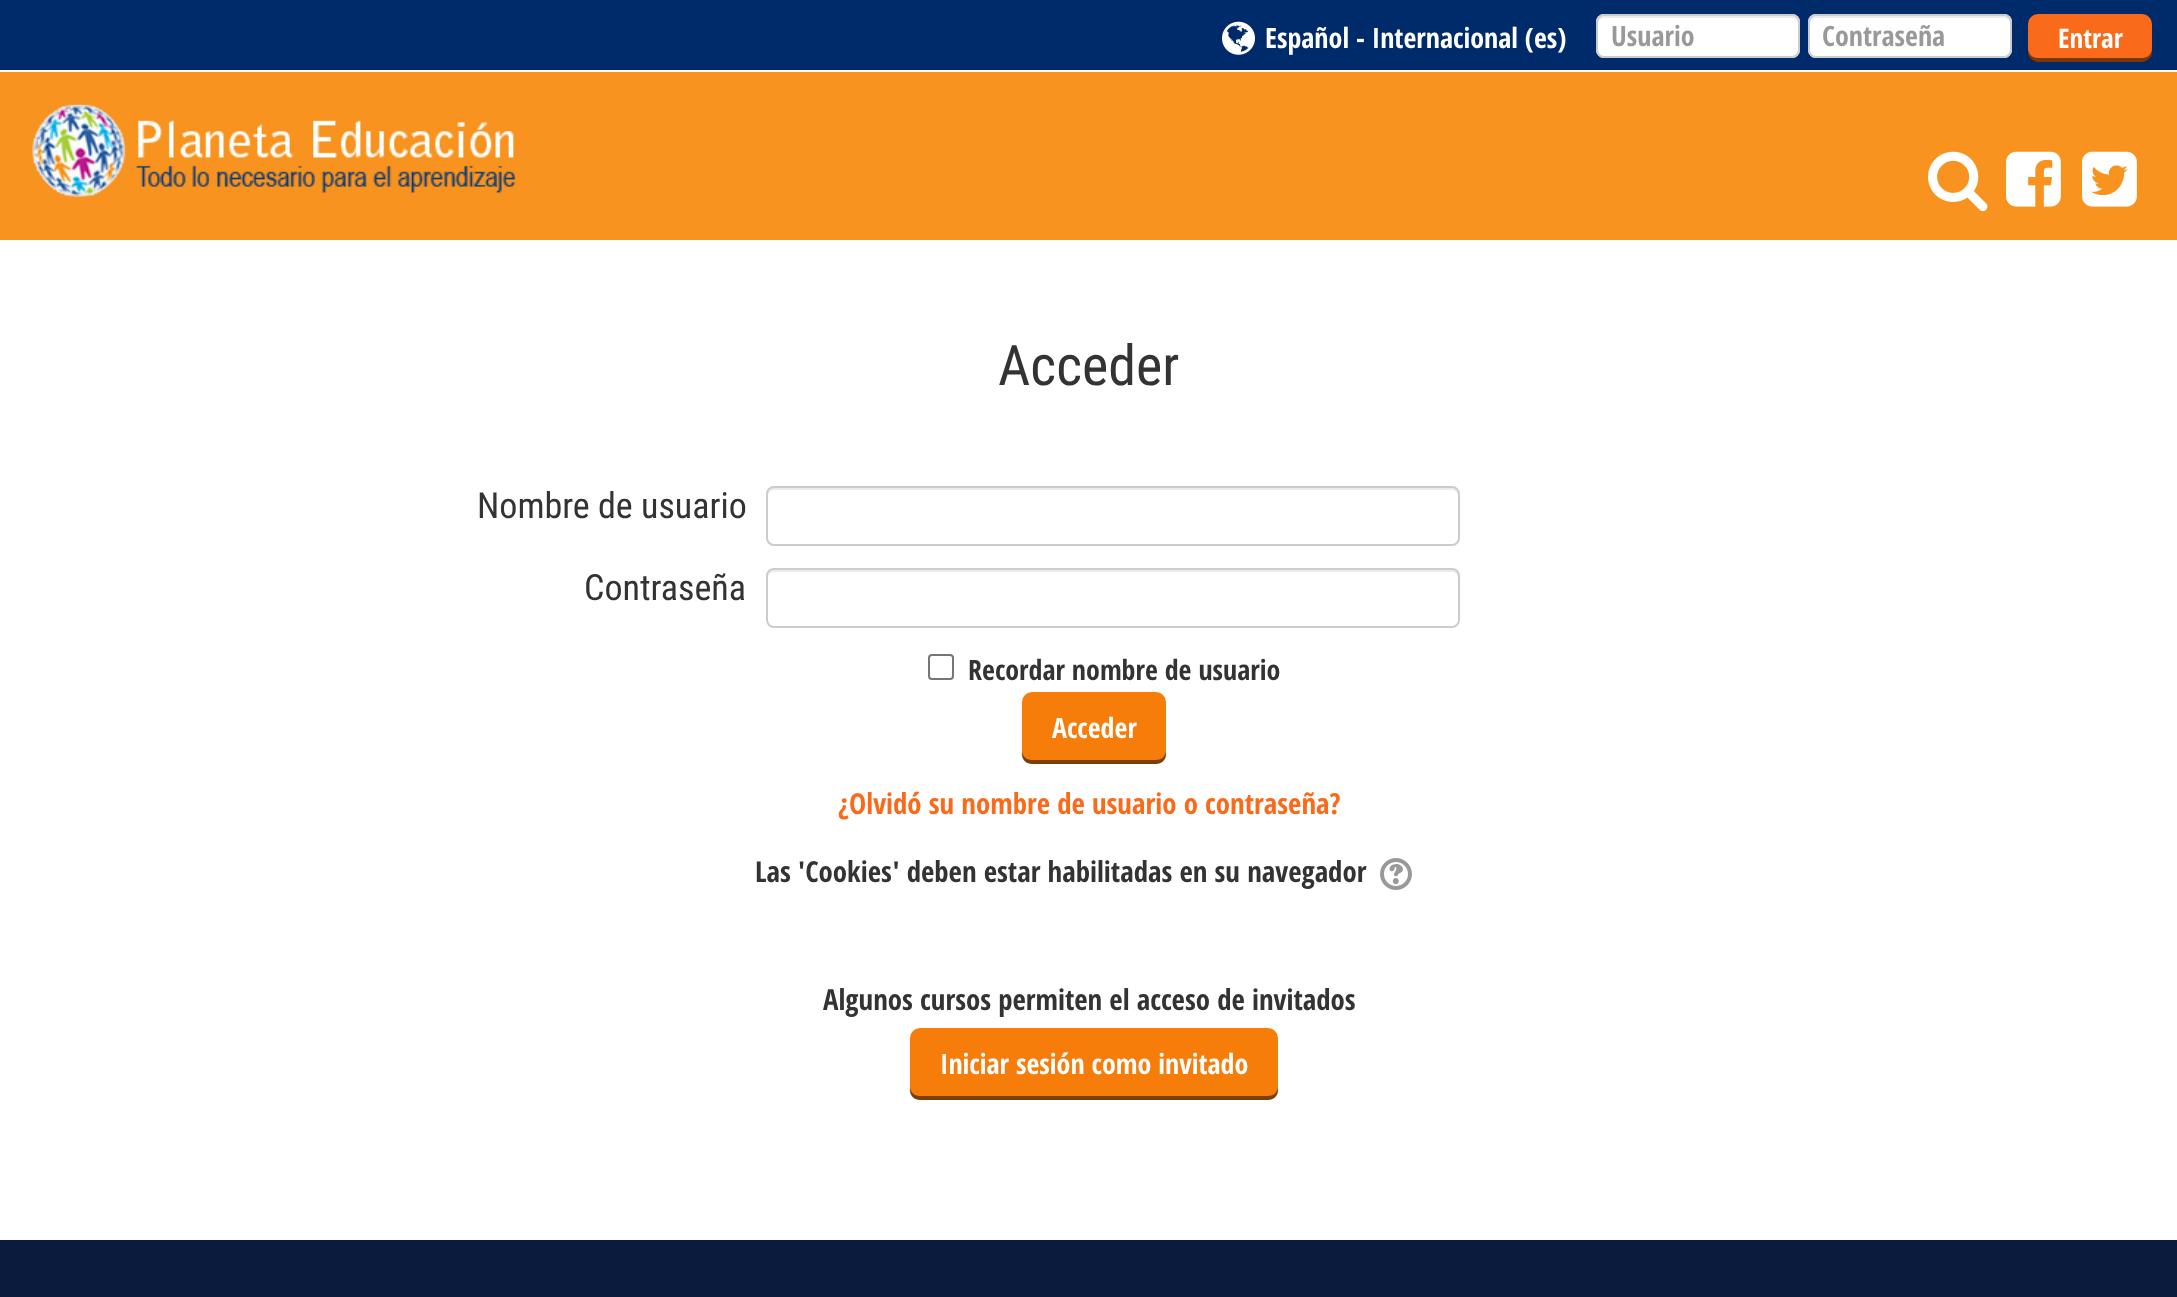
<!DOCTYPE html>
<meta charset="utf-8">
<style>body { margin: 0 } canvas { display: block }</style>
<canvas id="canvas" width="2177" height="1297"></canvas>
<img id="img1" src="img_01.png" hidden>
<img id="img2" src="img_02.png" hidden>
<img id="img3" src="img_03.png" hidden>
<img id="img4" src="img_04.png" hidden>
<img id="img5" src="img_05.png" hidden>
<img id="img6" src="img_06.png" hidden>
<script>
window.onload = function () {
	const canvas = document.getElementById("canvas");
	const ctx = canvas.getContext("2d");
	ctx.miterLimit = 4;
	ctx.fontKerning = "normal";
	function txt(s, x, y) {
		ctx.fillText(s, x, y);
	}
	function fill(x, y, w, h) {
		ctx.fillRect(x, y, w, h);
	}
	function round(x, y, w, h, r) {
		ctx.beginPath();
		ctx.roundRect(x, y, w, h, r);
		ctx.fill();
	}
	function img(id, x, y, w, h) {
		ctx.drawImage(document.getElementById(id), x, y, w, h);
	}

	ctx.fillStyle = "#FFFFFF";
	fill(0, 0, 2177, 1297);
	ctx.fillStyle = "#F7931E";
	fill(0, 72, 2177, 168);
	ctx.fillStyle = "#002B6A";
	fill(0, 0, 2177, 70);
	img("img1", 1222, 21, 33, 34);
	ctx.fillStyle = "#FFFFFF";
	round(1596, 14, 204, 44, 8);
	ctx.fillStyle = "#ECECEC";
	ctx.beginPath();
	ctx.moveTo(1604, 18);
	ctx.lineTo(1792, 18);
	ctx.bezierCurveTo(1795, 18, 1798, 21, 1798, 24);
	ctx.lineTo(1798, 22);
	ctx.bezierCurveTo(1798, 19, 1795, 16, 1792, 16);
	ctx.lineTo(1604, 16);
	ctx.bezierCurveTo(1601, 16, 1598, 19, 1598, 22);
	ctx.lineTo(1598, 24);
	ctx.bezierCurveTo(1598, 21, 1601, 18, 1604, 18);
	ctx.closePath();
	ctx.fill();
	ctx.beginPath();
	ctx.roundRect(1597, 15, 202, 42, 7);
	ctx.strokeStyle = "#CCCCCC";
	ctx.lineWidth = 2;
	ctx.stroke();
	ctx.fillStyle = "#FFFFFF";
	round(1808, 14, 204, 44, 8);
	ctx.fillStyle = "#ECECEC";
	ctx.beginPath();
	ctx.moveTo(1816, 18);
	ctx.lineTo(2004, 18);
	ctx.bezierCurveTo(2007, 18, 2010, 21, 2010, 24);
	ctx.lineTo(2010, 22);
	ctx.bezierCurveTo(2010, 19, 2007, 16, 2004, 16);
	ctx.lineTo(1816, 16);
	ctx.bezierCurveTo(1813, 16, 1810, 19, 1810, 22);
	ctx.lineTo(1810, 24);
	ctx.bezierCurveTo(1810, 21, 1813, 18, 1816, 18);
	ctx.closePath();
	ctx.fill();
	ctx.beginPath();
	ctx.roundRect(1809, 15, 202, 42, 7);
	ctx.stroke();
	ctx.fillStyle = "#F96A1B";
	round(2028, 14, 124, 48, 10);
	ctx.fillStyle = "rgba(0, 0, 0, 0.5)";
	ctx.beginPath();
	ctx.moveTo(2028, 48);
	ctx.lineTo(2028, 52);
	ctx.bezierCurveTo(2028, 58, 2032, 62, 2038, 62);
	ctx.lineTo(2142, 62);
	ctx.bezierCurveTo(2148, 62, 2152, 58, 2152, 52);
	ctx.lineTo(2152, 48);
	ctx.bezierCurveTo(2152, 54, 2148, 58, 2142, 58);
	ctx.lineTo(2038, 58);
	ctx.bezierCurveTo(2032, 58, 2028, 54, 2028, 48);
	ctx.closePath();
	ctx.fill();
	img("img2", 32, 104, 484, 93);
	img("img3", 1928, 151, 60, 61);
	img("img4", 2006, 151, 55, 56);
	img("img5", 2082, 151, 55, 56);
	ctx.fillStyle = "#ECECEC";
	ctx.beginPath();
	ctx.moveTo(774, 490);
	ctx.lineTo(1452, 490);
	ctx.bezierCurveTo(1455, 490, 1458, 493, 1458, 496);
	ctx.lineTo(1458, 494);
	ctx.bezierCurveTo(1458, 491, 1455, 488, 1452, 488);
	ctx.lineTo(774, 488);
	ctx.bezierCurveTo(771, 488, 768, 491, 768, 494);
	ctx.lineTo(768, 496);
	ctx.bezierCurveTo(768, 493, 771, 490, 774, 490);
	ctx.closePath();
	ctx.fill();
	ctx.beginPath();
	ctx.roundRect(767, 487, 692, 58, 7);
	ctx.stroke();
	ctx.beginPath();
	ctx.moveTo(774, 572);
	ctx.lineTo(1452, 572);
	ctx.bezierCurveTo(1455, 572, 1458, 575, 1458, 578);
	ctx.lineTo(1458, 576);
	ctx.bezierCurveTo(1458, 573, 1455, 570, 1452, 570);
	ctx.lineTo(774, 570);
	ctx.bezierCurveTo(771, 570, 768, 573, 768, 576);
	ctx.lineTo(768, 578);
	ctx.bezierCurveTo(768, 575, 771, 572, 774, 572);
	ctx.closePath();
	ctx.fill();
	ctx.beginPath();
	ctx.roundRect(767, 569, 692, 58, 7);
	ctx.stroke();
	ctx.beginPath();
	ctx.roundRect(929, 655, 24, 24, 3);
	ctx.strokeStyle = "#767676";
	ctx.stroke();
	ctx.fillStyle = "#F67D0A";
	round(1022, 692, 144, 72, 10);
	ctx.fillStyle = "rgba(0, 0, 0, 0.5)";
	ctx.beginPath();
	ctx.moveTo(1022, 750);
	ctx.lineTo(1022, 754);
	ctx.bezierCurveTo(1022, 760, 1026, 764, 1032, 764);
	ctx.lineTo(1156, 764);
	ctx.bezierCurveTo(1162, 764, 1166, 760, 1166, 754);
	ctx.lineTo(1166, 750);
	ctx.bezierCurveTo(1166, 756, 1162, 760, 1156, 760);
	ctx.lineTo(1032, 760);
	ctx.bezierCurveTo(1026, 760, 1022, 756, 1022, 750);
	ctx.closePath();
	ctx.fill();
	img("img6", 1380, 858, 32, 32);
	ctx.fillStyle = "#F67D0A";
	round(910, 1028, 368, 72, 10);
	ctx.fillStyle = "rgba(0, 0, 0, 0.5)";
	ctx.beginPath();
	ctx.moveTo(910, 1086);
	ctx.lineTo(910, 1090);
	ctx.bezierCurveTo(910, 1096, 914, 1100, 920, 1100);
	ctx.lineTo(1268, 1100);
	ctx.bezierCurveTo(1274, 1100, 1278, 1096, 1278, 1090);
	ctx.lineTo(1278, 1086);
	ctx.bezierCurveTo(1278, 1092, 1274, 1096, 1268, 1096);
	ctx.lineTo(920, 1096);
	ctx.bezierCurveTo(914, 1096, 910, 1092, 910, 1086);
	ctx.closePath();
	ctx.fill();
	ctx.fillStyle = "#0A1B3E";
	fill(0, 1240, 2177, 57);
	ctx.font = "bold 28px Open Sans Condensed";
	ctx.fillStyle = "#FFFFFF";
	txt("Español - Internacional (es)", 1265, 48);
	ctx.fillStyle = "#999999";
	txt("Usuario", 1611, 46);
	txt("Contraseña", 1822, 46);
	ctx.font = "bold 27px Open Sans Condensed";
	ctx.fillStyle = "#FFFFFF";
	txt("Entrar", 2058, 48);
	ctx.font = "56px Roboto Condensed";
	ctx.fillStyle = "#333333";
	txt("Acceder", 998, 385);
	ctx.font = "36px Roboto Condensed";
	txt("Nombre de usuario", 477, 518);
	txt("Contraseña", 584, 600);
	ctx.font = "bold 28px Open Sans Condensed";
	txt("Recordar nombre de usuario", 968, 680);
	ctx.fillStyle = "#FFFFFF";
	txt("Acceder", 1052, 738);
	ctx.font = "bold 28.9px Open Sans Condensed";
	ctx.fillStyle = "#F96A1B";
	txt("¿Olvidó su nombre de usuario o contraseña?", 838, 814);
	ctx.fillStyle = "#333333";
	txt("Las 'Cookies' deben estar habilitadas en su navegador", 755, 882);
	txt("Algunos cursos permiten el acceso de invitados", 823, 1010);
	ctx.font = "bold 28px Open Sans Condensed";
	ctx.fillStyle = "#FFFFFF";
	txt("Iniciar sesión como invitado", 940, 1074);
};
</script>
